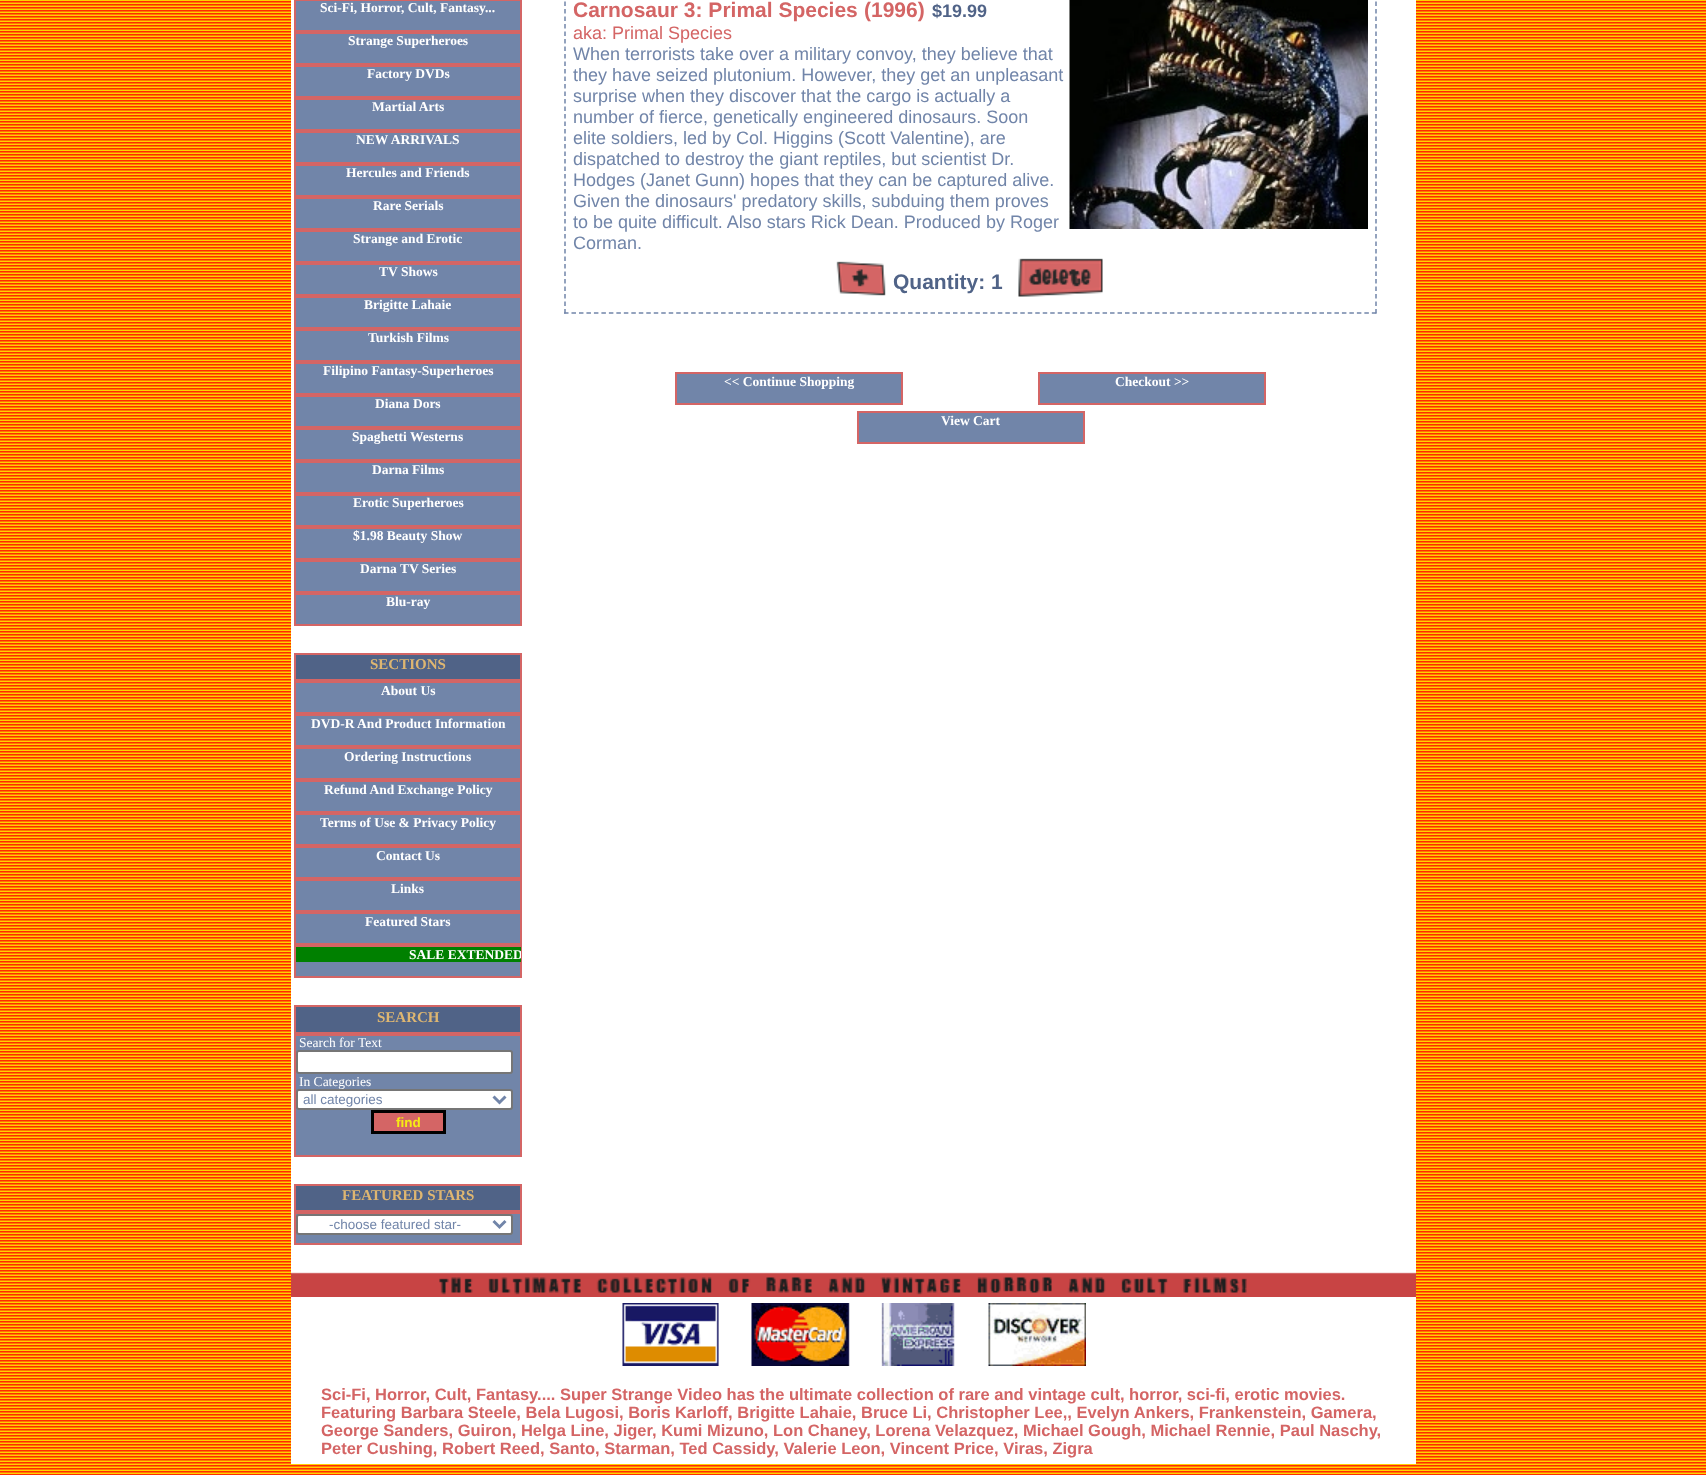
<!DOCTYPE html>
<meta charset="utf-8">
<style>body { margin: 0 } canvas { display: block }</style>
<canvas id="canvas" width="1706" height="1475"></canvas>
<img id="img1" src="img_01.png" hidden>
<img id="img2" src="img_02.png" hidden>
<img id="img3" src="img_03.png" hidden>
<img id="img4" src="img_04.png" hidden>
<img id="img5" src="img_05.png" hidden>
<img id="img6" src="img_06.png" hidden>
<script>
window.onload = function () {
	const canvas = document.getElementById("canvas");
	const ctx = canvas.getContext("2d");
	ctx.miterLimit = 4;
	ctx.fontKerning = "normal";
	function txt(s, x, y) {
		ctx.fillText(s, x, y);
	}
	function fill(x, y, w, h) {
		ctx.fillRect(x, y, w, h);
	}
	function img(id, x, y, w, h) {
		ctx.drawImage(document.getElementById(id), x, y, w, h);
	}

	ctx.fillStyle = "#FFFFFF";
	fill(0, 0, 1706, 1475);
	img("img1", 0, 0, 1706, 1475);
	fill(291, 0, 1125, 1464);
	ctx.fillStyle = "#7185A9";
	ctx.beginPath();
	ctx.rect(295, 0, 226, 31);
	ctx.fill();
	ctx.strokeStyle = "#D46565";
	ctx.lineWidth = 2;
	ctx.stroke();
	ctx.beginPath();
	ctx.rect(295, 33, 226, 31);
	ctx.fill();
	ctx.stroke();
	ctx.beginPath();
	ctx.rect(295, 66, 226, 31);
	ctx.fill();
	ctx.stroke();
	ctx.beginPath();
	ctx.rect(295, 99, 226, 31);
	ctx.fill();
	ctx.stroke();
	ctx.beginPath();
	ctx.rect(295, 132, 226, 31);
	ctx.fill();
	ctx.stroke();
	ctx.beginPath();
	ctx.rect(295, 165, 226, 31);
	ctx.fill();
	ctx.stroke();
	ctx.beginPath();
	ctx.rect(295, 198, 226, 31);
	ctx.fill();
	ctx.stroke();
	ctx.beginPath();
	ctx.rect(295, 231, 226, 31);
	ctx.fill();
	ctx.stroke();
	ctx.beginPath();
	ctx.rect(295, 264, 226, 31);
	ctx.fill();
	ctx.stroke();
	ctx.beginPath();
	ctx.rect(295, 297, 226, 31);
	ctx.fill();
	ctx.stroke();
	ctx.beginPath();
	ctx.rect(295, 330, 226, 31);
	ctx.fill();
	ctx.stroke();
	ctx.beginPath();
	ctx.rect(295, 363, 226, 31);
	ctx.fill();
	ctx.stroke();
	ctx.beginPath();
	ctx.rect(295, 396, 226, 31);
	ctx.fill();
	ctx.stroke();
	ctx.beginPath();
	ctx.rect(295, 429, 226, 31);
	ctx.fill();
	ctx.stroke();
	ctx.beginPath();
	ctx.rect(295, 462, 226, 31);
	ctx.fill();
	ctx.stroke();
	ctx.beginPath();
	ctx.rect(295, 495, 226, 31);
	ctx.fill();
	ctx.stroke();
	ctx.beginPath();
	ctx.rect(295, 528, 226, 31);
	ctx.fill();
	ctx.stroke();
	ctx.beginPath();
	ctx.rect(295, 561, 226, 31);
	ctx.fill();
	ctx.stroke();
	ctx.beginPath();
	ctx.rect(295, 594, 226, 31);
	ctx.fill();
	ctx.stroke();
	ctx.fillStyle = "#506387";
	ctx.beginPath();
	ctx.rect(295, 654, 226, 26);
	ctx.fill();
	ctx.stroke();
	ctx.fillStyle = "#7185A9";
	ctx.beginPath();
	ctx.rect(295, 682, 226, 31);
	ctx.fill();
	ctx.stroke();
	ctx.beginPath();
	ctx.rect(295, 715, 226, 31);
	ctx.fill();
	ctx.stroke();
	ctx.beginPath();
	ctx.rect(295, 748, 226, 31);
	ctx.fill();
	ctx.stroke();
	ctx.beginPath();
	ctx.rect(295, 781, 226, 31);
	ctx.fill();
	ctx.stroke();
	ctx.beginPath();
	ctx.rect(295, 814, 226, 31);
	ctx.fill();
	ctx.stroke();
	ctx.beginPath();
	ctx.rect(295, 847, 226, 31);
	ctx.fill();
	ctx.stroke();
	ctx.beginPath();
	ctx.rect(295, 880, 226, 31);
	ctx.fill();
	ctx.stroke();
	ctx.beginPath();
	ctx.rect(295, 913, 226, 31);
	ctx.fill();
	ctx.stroke();
	fill(296, 962, 224, 14);
	ctx.strokeRect(295, 946, 226, 31);
	ctx.fillStyle = "#008000";
	fill(296, 947, 225, 15);
	ctx.fillStyle = "#506387";
	ctx.beginPath();
	ctx.rect(295, 1006, 226, 27);
	ctx.fill();
	ctx.stroke();
	ctx.fillStyle = "#7185A9";
	ctx.beginPath();
	ctx.rect(295, 1035, 226, 121);
	ctx.fill();
	ctx.stroke();
	ctx.fillStyle = "#FFFFFF";
	ctx.beginPath();
	ctx.roundRect(297, 1051, 215, 22, 2);
	ctx.fill();
	ctx.strokeStyle = "#767676";
	ctx.stroke();
	ctx.beginPath();
	ctx.roundRect(297, 1090, 215, 19, 2);
	ctx.fill();
	ctx.stroke();
	ctx.beginPath();
	ctx.moveTo(493.5, 1096.5);
	ctx.lineTo(499.5, 1102.5);
	ctx.lineTo(505.5, 1096.5);
	ctx.strokeStyle = "#7185A9";
	ctx.lineWidth = 3;
	ctx.stroke();
	ctx.fillStyle = "#D46565";
	ctx.beginPath();
	ctx.rect(372.5, 1111.5, 72, 21);
	ctx.fill();
	ctx.strokeStyle = "#000000";
	ctx.stroke();
	ctx.fillStyle = "#506387";
	ctx.beginPath();
	ctx.rect(295, 1185, 226, 26);
	ctx.fill();
	ctx.strokeStyle = "#D46565";
	ctx.lineWidth = 2;
	ctx.stroke();
	ctx.fillStyle = "#7185A9";
	ctx.beginPath();
	ctx.rect(295, 1213, 226, 31);
	ctx.fill();
	ctx.stroke();
	ctx.fillStyle = "#FFFFFF";
	ctx.beginPath();
	ctx.roundRect(297, 1215, 215, 19, 2);
	ctx.fill();
	ctx.strokeStyle = "#767676";
	ctx.stroke();
	ctx.beginPath();
	ctx.moveTo(493.5, 1221);
	ctx.lineTo(499.5, 1227);
	ctx.lineTo(505.5, 1221);
	ctx.strokeStyle = "#7185A9";
	ctx.lineWidth = 3;
	ctx.stroke();
	ctx.beginPath();
	ctx.moveTo(1376, -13.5);
	ctx.lineTo(1376, 313.5);
	ctx.lineWidth = 1.5;
	ctx.setLineDash([4.5, 3]);
	ctx.stroke();
	ctx.beginPath();
	ctx.moveTo(564, 313);
	ctx.lineTo(1377, 313);
	ctx.setLineDash([4.5, 2.98]);
	ctx.stroke();
	ctx.beginPath();
	ctx.moveTo(565, -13.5);
	ctx.lineTo(565, 313.5);
	ctx.setLineDash([4.5, 3]);
	ctx.stroke();
	img("img2", 1069, 0, 299, 229);
	img("img3", 836, 261, 50, 35);
	img("img4", 1018, 258, 85, 39);
	ctx.fillStyle = "#7185A9";
	ctx.beginPath();
	ctx.rect(676, 373, 226, 31);
	ctx.fill();
	ctx.strokeStyle = "#D46565";
	ctx.lineWidth = 2;
	ctx.setLineDash([]);
	ctx.stroke();
	ctx.beginPath();
	ctx.rect(1039, 373, 226, 31);
	ctx.fill();
	ctx.stroke();
	ctx.beginPath();
	ctx.rect(858, 412, 226, 31);
	ctx.fill();
	ctx.stroke();
	img("img5", 291, 1272, 1125, 25);
	img("img6", 622, 1303, 464, 63);
	ctx.font = "bold 13.5px Liberation Serif";
	ctx.fillStyle = "#FFFFFF";
	txt("Sci-Fi, Horror, Cult, Fantasy...", 320, 12);
	txt("Strange Superheroes", 348, 45);
	txt("Factory DVDs", 367, 78);
	txt("Martial Arts", 372, 111);
	txt("NEW ARRIVALS", 356, 144);
	txt("Hercules and Friends", 346, 177);
	txt("Rare Serials", 373, 210);
	txt("Strange and Erotic", 353, 243);
	txt("TV Shows", 379, 276);
	txt("Brigitte Lahaie", 364, 309);
	txt("Turkish Films", 368, 342);
	txt("Filipino Fantasy-Superheroes", 323, 375);
	txt("Diana Dors", 375, 408);
	txt("Spaghetti Westerns", 352, 441);
	txt("Darna Films", 372, 474);
	txt("Erotic Superheroes", 353, 507);
	txt("$1.98 Beauty Show", 353, 540);
	txt("Darna TV Series", 360, 573);
	txt("Blu-ray", 386, 606);
	ctx.font = "bold 15px Liberation Serif";
	ctx.fillStyle = "#DEB671";
	txt("SECTIONS", 370, 669);
	ctx.font = "bold 13.5px Liberation Serif";
	ctx.fillStyle = "#FFFFFF";
	txt("About Us", 381, 695);
	txt("DVD-R And Product Information", 311, 728);
	txt("Ordering Instructions", 344, 761);
	txt("Refund And Exchange Policy", 324, 794);
	txt("Terms of Use & Privacy Policy", 320, 827);
	txt("Contact Us", 376, 860);
	txt("Links", 391, 893);
	txt("Featured Stars", 365, 926);
	ctx.save();
	ctx.beginPath();
	ctx.rect(296, 947, 225, 15);
	ctx.clip();
	txt("SALE EXTENDED", 409, 959);
	ctx.restore();
	ctx.font = "bold 15px Liberation Serif";
	ctx.fillStyle = "#DEB671";
	txt("SEARCH", 377, 1022);
	ctx.font = "13.5px Liberation Serif";
	ctx.fillStyle = "#FFFFFF";
	txt("Search for Text", 299, 1047);
	txt("In Categories", 299, 1086);
	ctx.font = "13.5px Liberation Sans";
	ctx.fillStyle = "#7185A9";
	txt("all categories", 303, 1104);
	ctx.font = "bold 13.5px Liberation Sans";
	ctx.fillStyle = "#F6EB14";
	txt("find", 396, 1127);
	ctx.font = "bold 15px Liberation Serif";
	ctx.fillStyle = "#DEB671";
	txt("FEATURED STARS", 342, 1200);
	ctx.font = "13.5px Liberation Sans";
	ctx.fillStyle = "#7185A9";
	txt("-choose featured star-", 329, 1229);
	ctx.font = "bold 21px Liberation Sans";
	ctx.fillStyle = "#D46565";
	txt("Carnosaur 3: Primal Species", 573, 17);
	txt("(1996)", 864, 17);
	ctx.font = "bold 18px Liberation Sans";
	ctx.fillStyle = "#506387";
	txt("$19.99", 932, 17);
	ctx.font = "18px Liberation Sans";
	ctx.fillStyle = "#D46565";
	txt("aka: Primal Species", 573, 39);
	ctx.fillStyle = "#7185A9";
	txt("When terrorists take over a military convoy, they believe that", 573, 60);
	txt("they have seized plutonium. However, they get an unpleasant", 573, 81);
	txt("surprise when they discover that the cargo is actually a", 573, 102);
	txt("number of fierce, genetically engineered dinosaurs. Soon", 573, 123);
	txt("elite soldiers, led by Col. Higgins (Scott Valentine), are", 573, 144);
	txt("dispatched to destroy the giant reptiles, but scientist Dr.", 573, 165);
	txt("Hodges (Janet Gunn) hopes that they can be captured alive.", 573, 186);
	txt("Given the dinosaurs' predatory skills, subduing them proves", 573, 207);
	txt("to be quite difficult. Also stars Rick Dean. Produced by Roger", 573, 228);
	txt("Corman.", 573, 249);
	ctx.font = "bold 21px Liberation Sans";
	ctx.fillStyle = "#506387";
	txt("Quantity: 1", 893, 289);
	ctx.font = "bold 13.5px Liberation Serif";
	ctx.fillStyle = "#FFFFFF";
	txt("<< Continue Shopping", 724, 386);
	txt("Checkout >>", 1115, 386);
	txt("View Cart", 941, 425);
	ctx.font = "bold 16.5px Liberation Sans";
	ctx.fillStyle = "#D46565";
	txt("Sci-Fi, Horror, Cult, Fantasy.... Super Strange Video has the ultimate collection of rare and vintage cult, horror, sci-fi, erotic movies.", 321, 1400);
	txt("Featuring Barbara Steele, Bela Lugosi, Boris Karloff, Brigitte Lahaie, Bruce Li, Christopher Lee,, Evelyn Ankers, Frankenstein, Gamera,", 321, 1418);
	txt("George Sanders, Guiron, Helga Line, Jiger, Kumi Mizuno, Lon Chaney, Lorena Velazquez, Michael Gough, Michael Rennie, Paul Naschy,", 321, 1436);
	txt("Peter Cushing, Robert Reed, Santo, Starman, Ted Cassidy, Valerie Leon, Vincent Price, Viras, Zigra", 321, 1454);
};
</script>
